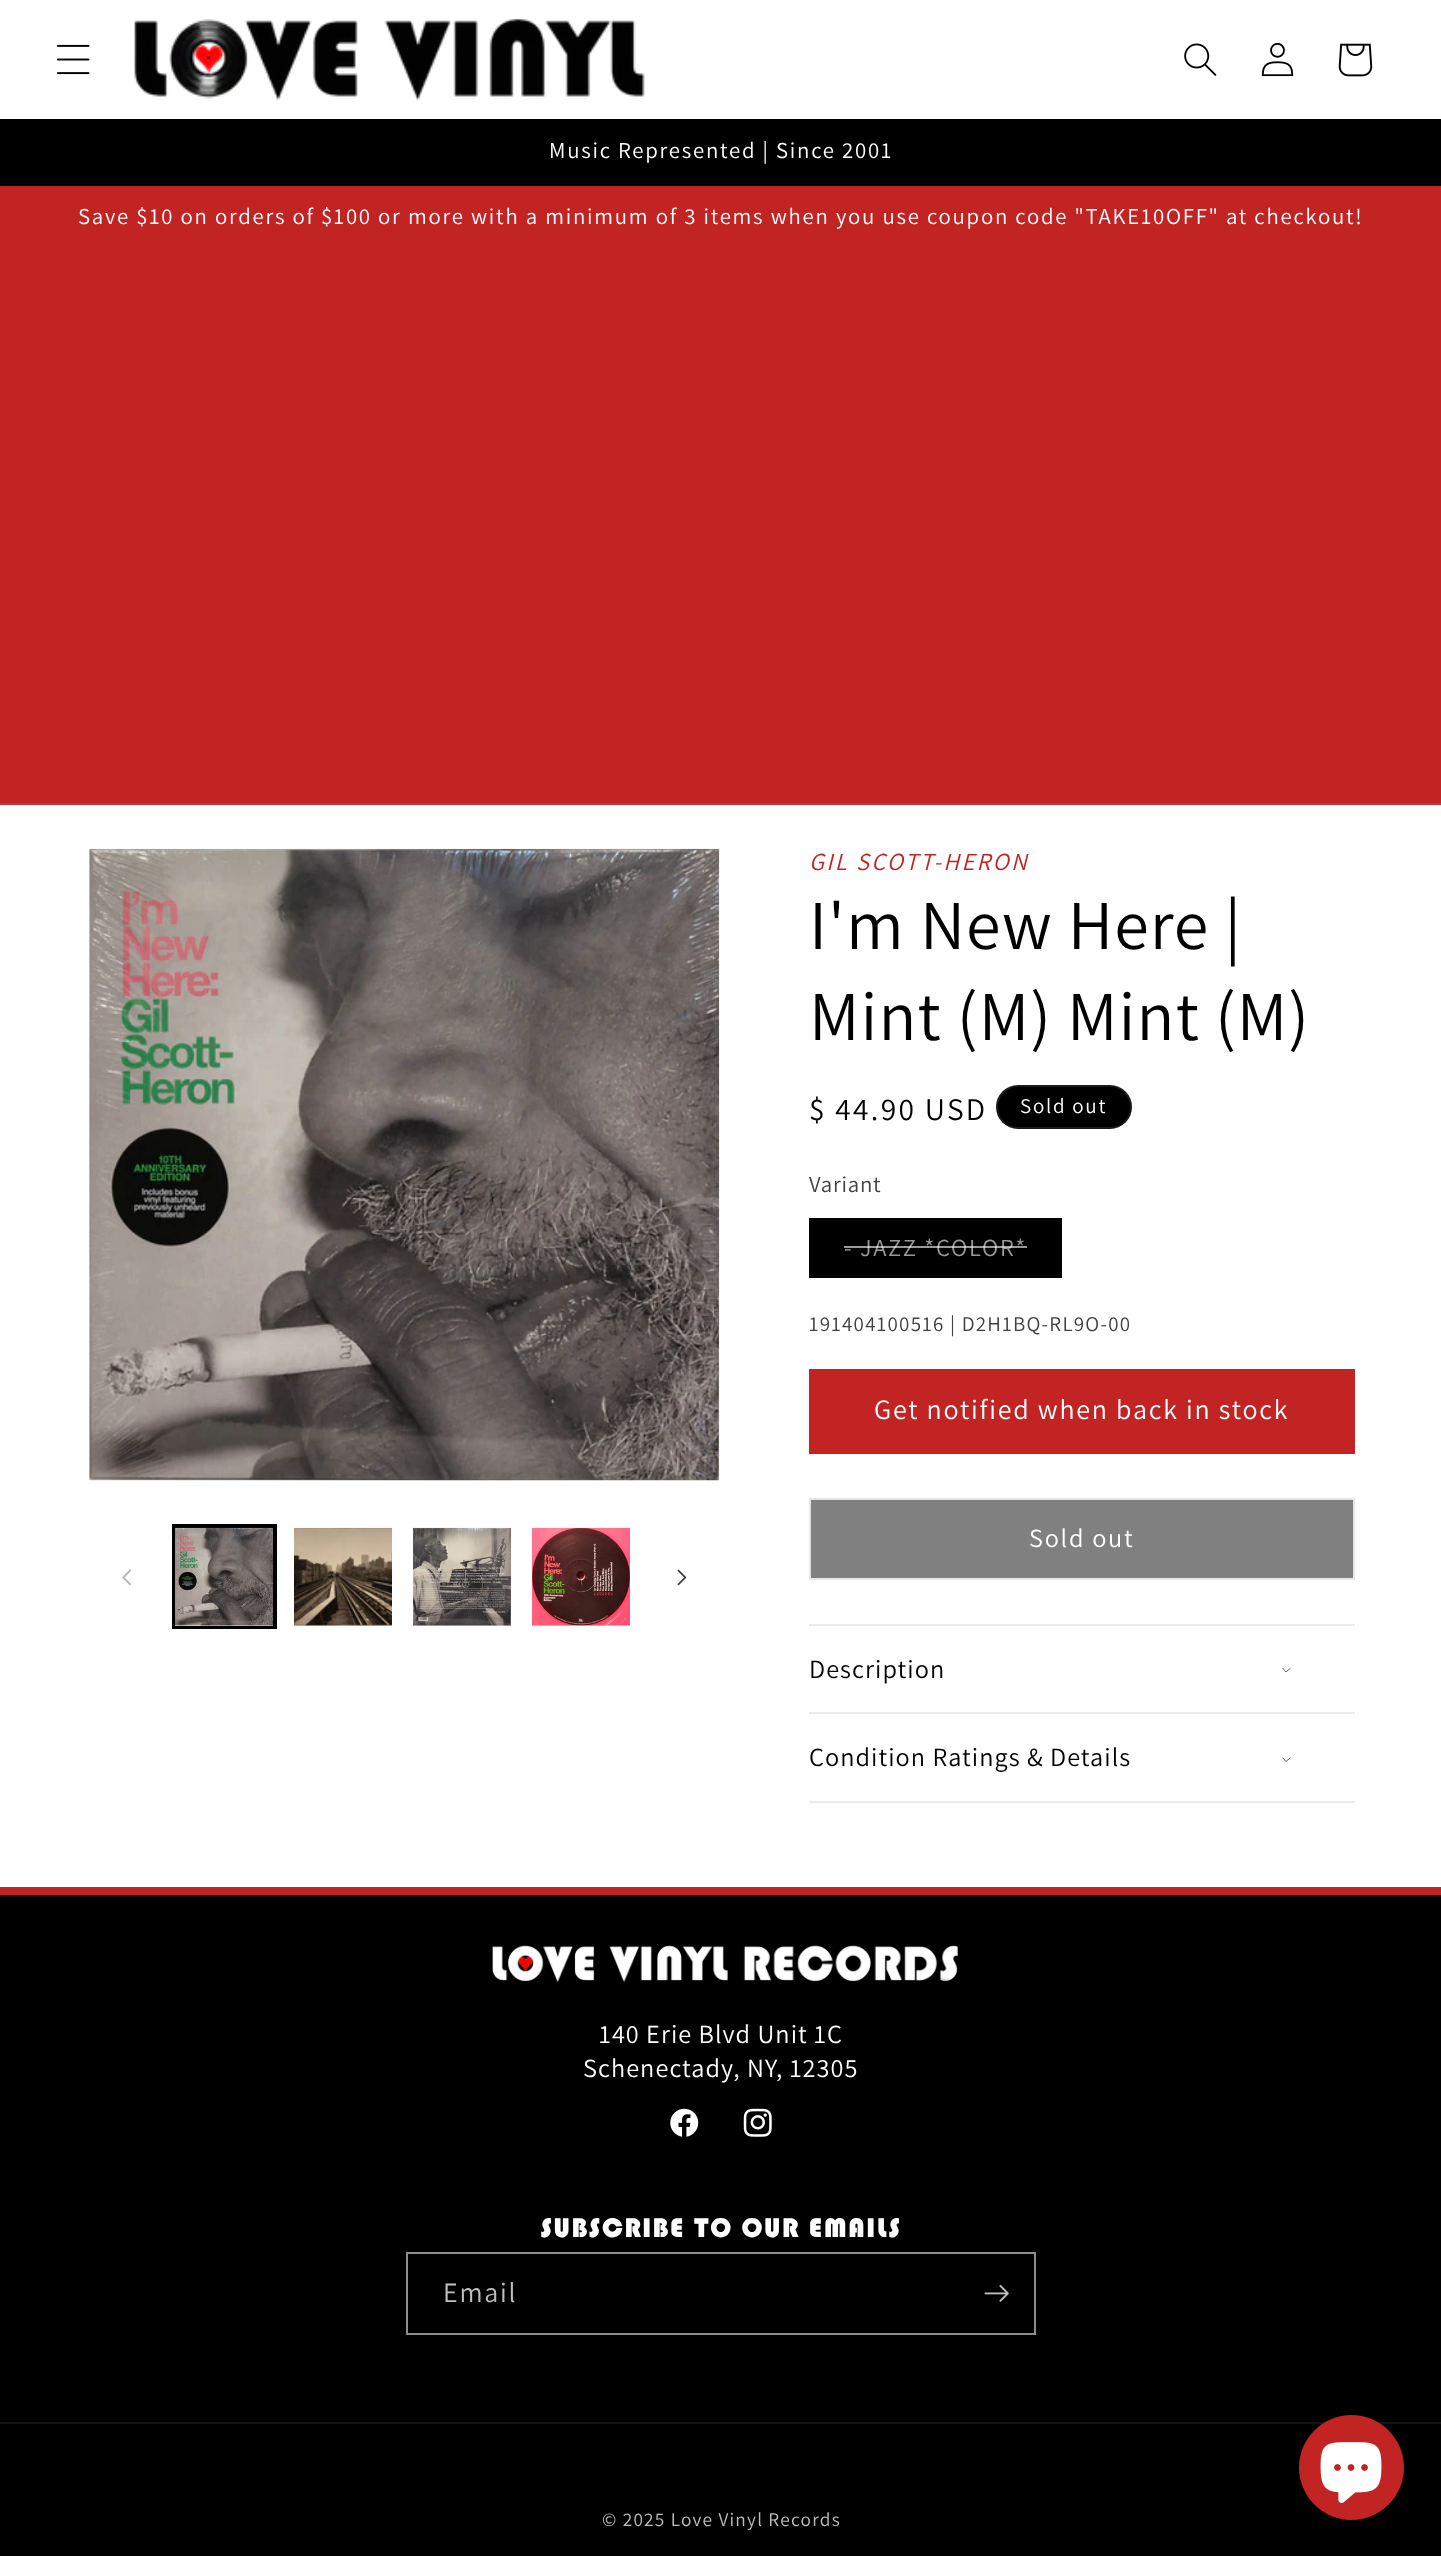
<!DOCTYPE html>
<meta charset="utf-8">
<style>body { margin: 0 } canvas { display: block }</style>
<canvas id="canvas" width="1441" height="2556"></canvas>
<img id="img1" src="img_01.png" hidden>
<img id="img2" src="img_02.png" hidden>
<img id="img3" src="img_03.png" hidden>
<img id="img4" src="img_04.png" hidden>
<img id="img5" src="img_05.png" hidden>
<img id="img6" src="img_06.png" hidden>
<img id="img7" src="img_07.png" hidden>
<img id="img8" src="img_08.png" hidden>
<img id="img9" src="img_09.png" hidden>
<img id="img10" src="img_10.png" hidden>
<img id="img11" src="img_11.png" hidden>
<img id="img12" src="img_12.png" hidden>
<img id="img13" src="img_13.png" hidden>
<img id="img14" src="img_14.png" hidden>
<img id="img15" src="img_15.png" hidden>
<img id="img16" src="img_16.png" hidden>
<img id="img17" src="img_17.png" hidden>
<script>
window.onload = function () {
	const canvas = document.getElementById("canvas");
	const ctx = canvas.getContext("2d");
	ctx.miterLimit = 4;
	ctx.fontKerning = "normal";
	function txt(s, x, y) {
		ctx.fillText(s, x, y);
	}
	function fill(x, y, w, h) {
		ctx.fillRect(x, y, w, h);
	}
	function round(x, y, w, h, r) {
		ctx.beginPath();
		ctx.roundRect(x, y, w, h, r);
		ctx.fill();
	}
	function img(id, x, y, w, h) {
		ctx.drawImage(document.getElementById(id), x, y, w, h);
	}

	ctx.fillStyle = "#FFFFFF";
	fill(0, 0, 1441, 2556);
	img("img1", 57, 44, 33, 31);
	img("img2", 134, 18, 511, 83);
	img("img3", 1184, 43, 33, 33);
	img("img4", 1261, 42, 33, 35);
	img("img5", 1338, 43, 35, 34);
	ctx.fillStyle = "#000000";
	fill(0, 119, 1441, 67);
	ctx.fillStyle = "#C22424";
	fill(0, 186, 1441, 617);
	ctx.fillStyle = "#C73636";
	fill(0, 803, 1441, 2);
	img("img6", 89, 848, 631, 633);
	img("img7", 122, 1569, 9, 17);
	ctx.strokeStyle = "#000000";
	ctx.lineWidth = 2;
	ctx.strokeRect(173, 1525, 103, 103);
	ctx.strokeRect(174, 1527, 100, 100);
	img("img8", 175, 1527, 98, 99);
	img("img9", 294, 1527, 98, 99);
	img("img10", 413, 1527, 98, 99);
	img("img11", 532, 1527, 98, 99);
	img("img12", 677, 1569, 10, 17);
	ctx.fillStyle = "#000000";
	round(996, 1085, 136, 44, 22);
	ctx.beginPath();
	ctx.roundRect(997, 1086, 134, 42, 21);
	ctx.strokeStyle = "rgba(255, 255, 255, 0.1)";
	ctx.stroke();
	fill(809, 1218, 253, 60);
	ctx.fillStyle = "#C22424";
	fill(809, 1369, 546, 85);
	ctx.fillStyle = "#808080";
	fill(811, 1500, 542, 78);
	ctx.strokeStyle = "#E6E6E6";
	ctx.strokeRect(810, 1499, 544, 80);
	ctx.fillStyle = "#EBEBEB";
	fill(809, 1624, 546, 2);
	fill(809, 1712, 546, 2);
	ctx.beginPath();
	ctx.moveTo(1283, 1668.5);
	ctx.lineTo(1286, 1672);
	ctx.lineTo(1290, 1668.5);
	ctx.strokeStyle = "#000000";
	ctx.lineWidth = 0.6;
	ctx.lineCap = "square";
	ctx.stroke();
	fill(809, 1801, 546, 2);
	ctx.beginPath();
	ctx.moveTo(1283, 1758);
	ctx.lineTo(1286, 1761.5);
	ctx.lineTo(1290, 1758);
	ctx.stroke();
	ctx.fillStyle = "#C22424";
	fill(0, 1887, 1441, 8);
	ctx.fillStyle = "#000000";
	fill(0, 1895, 1441, 661);
	img("img13", 492, 1945, 466, 37);
	img("img14", 670, 2108, 29, 29);
	img("img15", 743, 2108, 29, 29);
	ctx.strokeStyle = "#8C8C8C";
	ctx.lineWidth = 2;
	ctx.strokeRect(407, 2253, 628, 81);
	img("img16", 984, 2285, 25, 17);
	ctx.fillStyle = "#141414";
	fill(0, 2422, 1441, 2);
	ctx.fillStyle = "#C22424";
	ctx.beginPath();
	ctx.arc(1351.5, 2467.5, 52.5, 0, Math.PI * 2);
	ctx.fill();
	img("img17", 1320, 2442, 62, 61);
	ctx.letterSpacing = "1.75px";
	ctx.font = "22.75px Assistant";
	ctx.fillStyle = "#FFFFFF";
	txt("Music Represented | Since 2001", 549, 158);
	txt("Save $10 on orders of $100 or more with a minimum of 3 items when you use coupon code \"TAKE10OFF\" at checkout!", 78, 224);
	ctx.letterSpacing = "2.25px";
	ctx.font = "italic 24.5px Assistant";
	ctx.fillStyle = "#C22424";
	txt("GIL SCOTT-HERON", 809, 870);
	ctx.letterSpacing = "1.05px";
	ctx.font = "70px Assistant";
	ctx.fillStyle = "#000000";
	txt("I'm New Here |", 809, 949);
	txt("Mint (M) Mint (M)", 809, 1040);
	ctx.letterSpacing = "2.25px";
	ctx.font = "31.5px Assistant";
	txt("$ 44.90 USD", 809, 1120);
	ctx.letterSpacing = "1.75px";
	ctx.font = "21px Assistant";
	ctx.fillStyle = "#FFFFFF";
	txt("Sold out", 1020, 1113);
	ctx.letterSpacing = "0.75px";
	ctx.font = "22.75px Assistant";
	ctx.fillStyle = "#404040";
	txt("Variant", 809, 1192);
	ctx.letterSpacing = "1.75px";
	ctx.font = "24.5px Assistant";
	ctx.fillStyle = "#999999";
	txt("- JAZZ *COLOR*", 844, 1256);
	ctx.fillStyle = "rgba(255, 255, 255, 0.6)";
	fill(844, 1246, 183, 2);
	ctx.letterSpacing = "1.25px";
	ctx.font = "21px Assistant";
	ctx.fillStyle = "#404040";
	txt("191404100516 | D2H1BQ-RL9O-00", 809, 1331);
	ctx.letterSpacing = "1.75px";
	ctx.font = "28px Assistant";
	ctx.fillStyle = "#FFFFFF";
	txt("Get notified when back in stock", 874, 1419);
	ctx.font = "26.25px Assistant";
	txt("Sold out", 1029, 1547);
	ctx.letterSpacing = "1.05px";
	ctx.fillStyle = "#000000";
	txt("Description", 809, 1678);
	txt("Condition Ratings & Details", 809, 1766);
	ctx.fillStyle = "#FFFFFF";
	txt("140 Erie Blvd Unit 1C", 599, 2043);
	txt("Schenectady, NY, 12305", 583, 2077);
	ctx.font = "900 28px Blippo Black";
	txt("SUBSCRIBE TO OUR EMAILS", 540, 2237);
	ctx.letterSpacing = "1.75px";
	ctx.font = "28px Assistant";
	ctx.fillStyle = "#BFBFBF";
	txt("Email", 443, 2302);
	ctx.letterSpacing = "1.25px";
	ctx.font = "19.25px Assistant";
	txt("© 2025 Love Vinyl Records", 602, 2526);
};
</script>
